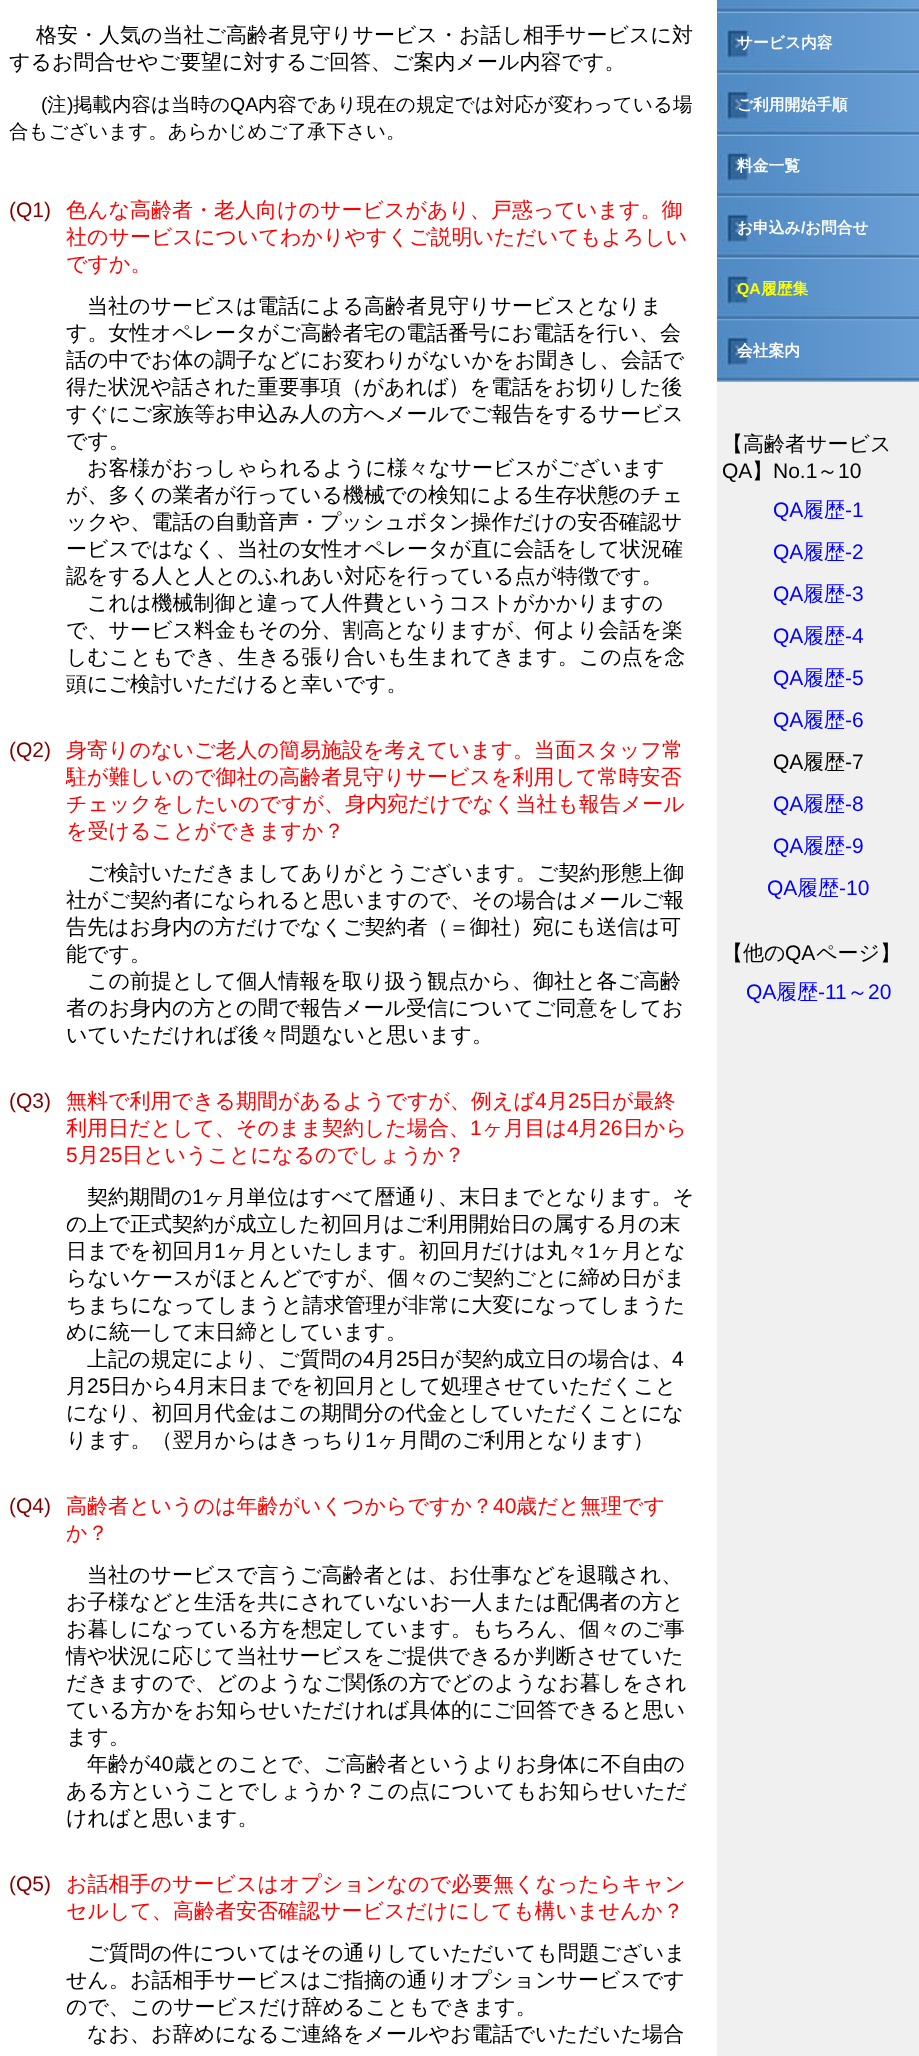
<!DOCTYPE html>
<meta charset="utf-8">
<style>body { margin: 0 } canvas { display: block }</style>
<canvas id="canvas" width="919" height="2056"></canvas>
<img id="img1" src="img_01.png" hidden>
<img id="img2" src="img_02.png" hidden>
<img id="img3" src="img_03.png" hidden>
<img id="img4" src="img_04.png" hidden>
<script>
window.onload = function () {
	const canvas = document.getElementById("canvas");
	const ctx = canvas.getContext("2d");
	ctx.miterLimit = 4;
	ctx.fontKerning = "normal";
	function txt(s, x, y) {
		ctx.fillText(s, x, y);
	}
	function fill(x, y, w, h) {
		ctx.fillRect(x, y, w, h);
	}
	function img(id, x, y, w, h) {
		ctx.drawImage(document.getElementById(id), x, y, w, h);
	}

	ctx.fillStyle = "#FFFFFF";
	fill(0, 0, 919, 2056);
	ctx.fillStyle = "#F1F0F0";
	fill(717, 382, 202, 1674);
	img("img1", 717, 74, 202, 247);
	img("img2", 717, 0, 202, 13);
	img("img3", 717, 13, 202, 62);
	img("img4", 717, 74, 202, 62);
	img("img3", 717, 136, 202, 62);
	img("img4", 717, 197, 202, 62);
	img("img3", 717, 259, 202, 62);
	img("img4", 717, 320, 202, 62);
	ctx.font = "500 21px WenQuanYi Zen Hei";
	ctx.fillStyle = "#000000";
	txt("格安・人気の当社ご高齢者見守りサービス・お話し相手サービスに対", 36, 42);
	txt("するお問合せやご要望に対するご回答、ご案内メール内容です。", 9, 69);
	ctx.font = "19.5px Liberation Sans";
	txt("(", 41, 111);
	ctx.font = "500 19.5px WenQuanYi Zen Hei";
	txt("注", 47, 111);
	ctx.font = "19.5px Liberation Sans";
	txt(")", 67, 111);
	ctx.font = "500 19.5px WenQuanYi Zen Hei";
	txt("掲載内容は当時の", 73, 111);
	ctx.font = "19.5px Liberation Sans";
	txt("QA", 230, 111);
	ctx.font = "500 19.5px WenQuanYi Zen Hei";
	txt("内容であり現在の規定では対応が変わっている場", 258, 111);
	txt("合もございます。あらかじめご了承下さい。", 9, 138);
	ctx.font = "21px Liberation Sans";
	ctx.fillStyle = "#800000";
	txt("(Q1)", 9, 217);
	ctx.font = "500 21px WenQuanYi Zen Hei";
	ctx.fillStyle = "#FF0000";
	txt("色んな高齢者・老人向けのサービスがあり、戸惑っています。御", 66, 217);
	txt("社のサービスについてわかりやすくご説明いただいてもよろしい", 66, 244);
	txt("ですか。", 66, 271);
	ctx.fillStyle = "#000000";
	txt("当社のサービスは電話による高齢者見守りサービスとなりま", 87, 313);
	txt("す。女性オペレータがご高齢者宅の電話番号にお電話を行い、会", 66, 340);
	txt("話の中でお体の調子などにお変わりがないかをお聞きし、会話で", 66, 367);
	txt("得た状況や話された重要事項（があれば）を電話をお切りした後", 66, 394);
	txt("すぐにご家族等お申込み人の方へメールでご報告をするサービス", 66, 421);
	txt("です。", 66, 448);
	txt("お客様がおっしゃられるように様々なサービスがございます", 87, 475);
	txt("が、多くの業者が行っている機械での検知による生存状態のチェ", 66, 502);
	txt("ックや、電話の自動音声・プッシュボタン操作だけの安否確認サ", 66, 529);
	txt("ービスではなく、当社の女性オペレータが直に会話をして状況確", 66, 556);
	txt("認をする人と人とのふれあい対応を行っている点が特徴です。", 66, 583);
	txt("これは機械制御と違って人件費というコストがかかりますの", 87, 610);
	txt("で、サービス料金もその分、割高となりますが、何より会話を楽", 66, 637);
	txt("しむこともでき、生きる張り合いも生まれてきます。この点を念", 66, 664);
	txt("頭にご検討いただけると幸いです。", 66, 691);
	ctx.font = "21px Liberation Sans";
	ctx.fillStyle = "#800000";
	txt("(Q2)", 9, 757);
	ctx.font = "500 21px WenQuanYi Zen Hei";
	ctx.fillStyle = "#FF0000";
	txt("身寄りのないご老人の簡易施設を考えています。当面スタッフ常", 66, 757);
	txt("駐が難しいので御社の高齢者見守りサービスを利用して常時安否", 66, 784);
	txt("チェックをしたいのですが、身内宛だけでなく当社も報告メール", 66, 811);
	txt("を受けることができますか？", 66, 838);
	ctx.fillStyle = "#000000";
	txt("ご検討いただきましてありがとうございます。ご契約形態上御", 87, 880);
	txt("社がご契約者になられると思いますので、その場合はメールご報", 66, 907);
	txt("告先はお身内の方だけでなくご契約者（＝御社）宛にも送信は可", 66, 934);
	txt("能です。", 66, 961);
	txt("この前提として個人情報を取り扱う観点から、御社と各ご高齢", 87, 988);
	txt("者のお身内の方との間で報告メール受信についてご同意をしてお", 66, 1015);
	txt("いていただければ後々問題ないと思います。", 66, 1042);
	ctx.font = "21px Liberation Sans";
	ctx.fillStyle = "#800000";
	txt("(Q3)", 9, 1108);
	ctx.font = "500 21px WenQuanYi Zen Hei";
	ctx.fillStyle = "#FF0000";
	txt("無料で利用できる期間があるようですが、例えば", 66, 1108);
	ctx.font = "21px Liberation Sans";
	txt("4", 535, 1108);
	ctx.font = "500 21px WenQuanYi Zen Hei";
	txt("月", 547, 1108);
	ctx.font = "21px Liberation Sans";
	txt("25", 568, 1108);
	ctx.font = "500 21px WenQuanYi Zen Hei";
	txt("日が最終", 591, 1108);
	txt("利用日だとして、そのまま契約した場合、", 66, 1135);
	ctx.font = "21px Liberation Sans";
	txt("1", 470, 1135);
	ctx.font = "500 21px WenQuanYi Zen Hei";
	txt("ヶ月目は", 482, 1135);
	ctx.font = "21px Liberation Sans";
	txt("4", 567, 1135);
	ctx.font = "500 21px WenQuanYi Zen Hei";
	txt("月", 578, 1135);
	ctx.font = "21px Liberation Sans";
	txt("26", 599, 1135);
	ctx.font = "500 21px WenQuanYi Zen Hei";
	txt("日から", 623, 1135);
	ctx.font = "21px Liberation Sans";
	txt("5", 66, 1162);
	ctx.font = "500 21px WenQuanYi Zen Hei";
	txt("月", 78, 1162);
	ctx.font = "21px Liberation Sans";
	txt("25", 99, 1162);
	ctx.font = "500 21px WenQuanYi Zen Hei";
	txt("日ということになるのでしょうか？", 122, 1162);
	ctx.fillStyle = "#000000";
	txt("契約期間の", 87, 1204);
	ctx.font = "21px Liberation Sans";
	txt("1", 192, 1204);
	ctx.font = "500 21px WenQuanYi Zen Hei";
	txt("ヶ月単位はすべて暦通り、末日までとなります。そ", 204, 1204);
	txt("の上で正式契約が成立した初回月はご利用開始日の属する月の末", 66, 1231);
	txt("日までを初回月", 66, 1258);
	ctx.font = "21px Liberation Sans";
	txt("1", 214, 1258);
	ctx.font = "500 21px WenQuanYi Zen Hei";
	txt("ヶ月といたします。初回月だけは丸々", 226, 1258);
	ctx.font = "21px Liberation Sans";
	txt("1", 588, 1258);
	ctx.font = "500 21px WenQuanYi Zen Hei";
	txt("ヶ月とな", 600, 1258);
	txt("らないケースがほとんどですが、個々のご契約ごとに締め日がま", 66, 1285);
	txt("ちまちになってしまうと請求管理が非常に大変になってしまうた", 66, 1312);
	txt("めに統一して末日締としています。", 66, 1339);
	txt("上記の規定により、ご質問の", 87, 1366);
	ctx.font = "21px Liberation Sans";
	txt("4", 363, 1366);
	ctx.font = "500 21px WenQuanYi Zen Hei";
	txt("月", 375, 1366);
	ctx.font = "21px Liberation Sans";
	txt("25", 396, 1366);
	ctx.font = "500 21px WenQuanYi Zen Hei";
	txt("日が契約成立日の場合は、", 419, 1366);
	ctx.font = "21px Liberation Sans";
	txt("4", 672, 1366);
	ctx.font = "500 21px WenQuanYi Zen Hei";
	txt("月", 66, 1393);
	ctx.font = "21px Liberation Sans";
	txt("25", 87, 1393);
	ctx.font = "500 21px WenQuanYi Zen Hei";
	txt("日から", 110, 1393);
	ctx.font = "21px Liberation Sans";
	txt("4", 174, 1393);
	ctx.font = "500 21px WenQuanYi Zen Hei";
	txt("月末日までを初回月として処理させていただくこと", 186, 1393);
	txt("になり、初回月代金はこの期間分の代金としていただくことにな", 66, 1420);
	txt("ります。（翌月からはきっちり", 66, 1447);
	ctx.font = "21px Liberation Sans";
	txt("1", 365, 1447);
	ctx.font = "500 21px WenQuanYi Zen Hei";
	txt("ヶ月間のご利用となります）", 377, 1447);
	ctx.font = "21px Liberation Sans";
	ctx.fillStyle = "#800000";
	txt("(Q4)", 9, 1513);
	ctx.font = "500 21px WenQuanYi Zen Hei";
	ctx.fillStyle = "#FF0000";
	txt("高齢者というのは年齢がいくつからですか？", 66, 1513);
	ctx.font = "21px Liberation Sans";
	txt("40", 493, 1513);
	ctx.font = "500 21px WenQuanYi Zen Hei";
	txt("歳だと無理です", 516, 1513);
	txt("か？", 66, 1540);
	ctx.fillStyle = "#000000";
	txt("当社のサービスで言うご高齢者とは、お仕事などを退職され、", 87, 1582);
	txt("お子様などと生活を共にされていないお一人または配偶者の方と", 66, 1609);
	txt("お暮しになっている方を想定しています。もちろん、個々のご事", 66, 1636);
	txt("情や状況に応じて当社サービスをご提供できるか判断させていた", 66, 1663);
	txt("だきますので、どのようなご関係の方でどのようなお暮しをされ", 66, 1690);
	txt("ている方かをお知らせいただければ具体的にご回答できると思い", 66, 1717);
	txt("ます。", 66, 1744);
	txt("年齢が", 87, 1771);
	ctx.font = "21px Liberation Sans";
	txt("40", 150, 1771);
	ctx.font = "500 21px WenQuanYi Zen Hei";
	txt("歳とのことで、ご高齢者というよりお身体に不自由の", 174, 1771);
	txt("ある方ということでしょうか？この点についてもお知らせいただ", 66, 1798);
	txt("ければと思います。", 66, 1825);
	ctx.font = "21px Liberation Sans";
	ctx.fillStyle = "#800000";
	txt("(Q5)", 9, 1891);
	ctx.font = "500 21px WenQuanYi Zen Hei";
	ctx.fillStyle = "#FF0000";
	txt("お話相手のサービスはオプションなので必要無くなったらキャン", 66, 1891);
	txt("セルして、高齢者安否確認サービスだけにしても構いませんか？", 66, 1918);
	ctx.fillStyle = "#000000";
	txt("ご質問の件についてはその通りしていただいても問題ございま", 87, 1960);
	txt("せん。お話相手サービスはご指摘の通りオプションサービスです", 66, 1987);
	txt("ので、このサービスだけ辞めることもできます。", 66, 2014);
	txt("なお、お辞めになるご連絡をメールやお電話でいただいた場合", 87, 2041);
	ctx.font = "bold 15.75px WenQuanYi Zen Hei";
	ctx.fillStyle = "#FFFFFF";
	txt("サービス内容", 737, 48);
	txt("ご利用開始手順", 737, 110);
	txt("料金一覧", 737, 171);
	txt("お申込み", 737, 233);
	ctx.font = "bold 15.75px Liberation Sans";
	txt("/", 801, 233);
	ctx.font = "bold 15.75px WenQuanYi Zen Hei";
	txt("お問合せ", 805, 233);
	ctx.font = "bold 15.75px Liberation Sans";
	ctx.fillStyle = "#FFFF00";
	txt("QA", 737, 294);
	ctx.font = "bold 15.75px WenQuanYi Zen Hei";
	txt("履歴集", 761, 294);
	ctx.fillStyle = "#FFFFFF";
	txt("会社案内", 737, 356);
	ctx.font = "500 21px WenQuanYi Zen Hei";
	ctx.fillStyle = "#000000";
	txt("【高齢者サービス", 722, 451);
	ctx.font = "21px Liberation Sans";
	txt("QA", 722, 478);
	ctx.font = "500 21px WenQuanYi Zen Hei";
	txt("】", 752, 478);
	ctx.font = "21px Liberation Sans";
	txt("No.1", 773, 478);
	ctx.font = "500 21px WenQuanYi Zen Hei";
	txt("～", 817, 478);
	ctx.font = "21px Liberation Sans";
	txt("10", 838, 478);
	ctx.fillStyle = "#0000FF";
	txt("QA", 773, 517);
	ctx.font = "500 21px WenQuanYi Zen Hei";
	txt("履歴", 803, 517);
	ctx.font = "21px Liberation Sans";
	txt("-1", 845, 517);
	txt("QA", 773, 559);
	ctx.font = "500 21px WenQuanYi Zen Hei";
	txt("履歴", 803, 559);
	ctx.font = "21px Liberation Sans";
	txt("-2", 845, 559);
	txt("QA", 773, 601);
	ctx.font = "500 21px WenQuanYi Zen Hei";
	txt("履歴", 803, 601);
	ctx.font = "21px Liberation Sans";
	txt("-3", 845, 601);
	txt("QA", 773, 643);
	ctx.font = "500 21px WenQuanYi Zen Hei";
	txt("履歴", 803, 643);
	ctx.font = "21px Liberation Sans";
	txt("-4", 845, 643);
	txt("QA", 773, 685);
	ctx.font = "500 21px WenQuanYi Zen Hei";
	txt("履歴", 803, 685);
	ctx.font = "21px Liberation Sans";
	txt("-5", 845, 685);
	txt("QA", 773, 727);
	ctx.font = "500 21px WenQuanYi Zen Hei";
	txt("履歴", 803, 727);
	ctx.font = "21px Liberation Sans";
	txt("-6", 845, 727);
	ctx.fillStyle = "#000000";
	txt("QA", 773, 769);
	ctx.font = "500 21px WenQuanYi Zen Hei";
	txt("履歴", 803, 769);
	ctx.font = "21px Liberation Sans";
	txt("-7", 845, 769);
	ctx.fillStyle = "#0000FF";
	txt("QA", 773, 811);
	ctx.font = "500 21px WenQuanYi Zen Hei";
	txt("履歴", 803, 811);
	ctx.font = "21px Liberation Sans";
	txt("-8", 845, 811);
	txt("QA", 773, 853);
	ctx.font = "500 21px WenQuanYi Zen Hei";
	txt("履歴", 803, 853);
	ctx.font = "21px Liberation Sans";
	txt("-9", 845, 853);
	txt("QA", 767, 895);
	ctx.font = "500 21px WenQuanYi Zen Hei";
	txt("履歴", 797, 895);
	ctx.font = "21px Liberation Sans";
	txt("-10", 839, 895);
	ctx.font = "500 21px WenQuanYi Zen Hei";
	ctx.fillStyle = "#000000";
	txt("【他の", 722, 960);
	ctx.font = "21px Liberation Sans";
	txt("QA", 785, 960);
	ctx.font = "500 21px WenQuanYi Zen Hei";
	txt("ページ】", 816, 960);
	ctx.font = "21px Liberation Sans";
	ctx.fillStyle = "#0000FF";
	txt("QA", 746, 999);
	ctx.font = "500 21px WenQuanYi Zen Hei";
	txt("履歴", 776, 999);
	ctx.font = "21px Liberation Sans";
	txt("-11", 818, 999);
	ctx.font = "500 21px WenQuanYi Zen Hei";
	txt("～", 847, 999);
	ctx.font = "21px Liberation Sans";
	txt("20", 868, 999);
};
</script>
